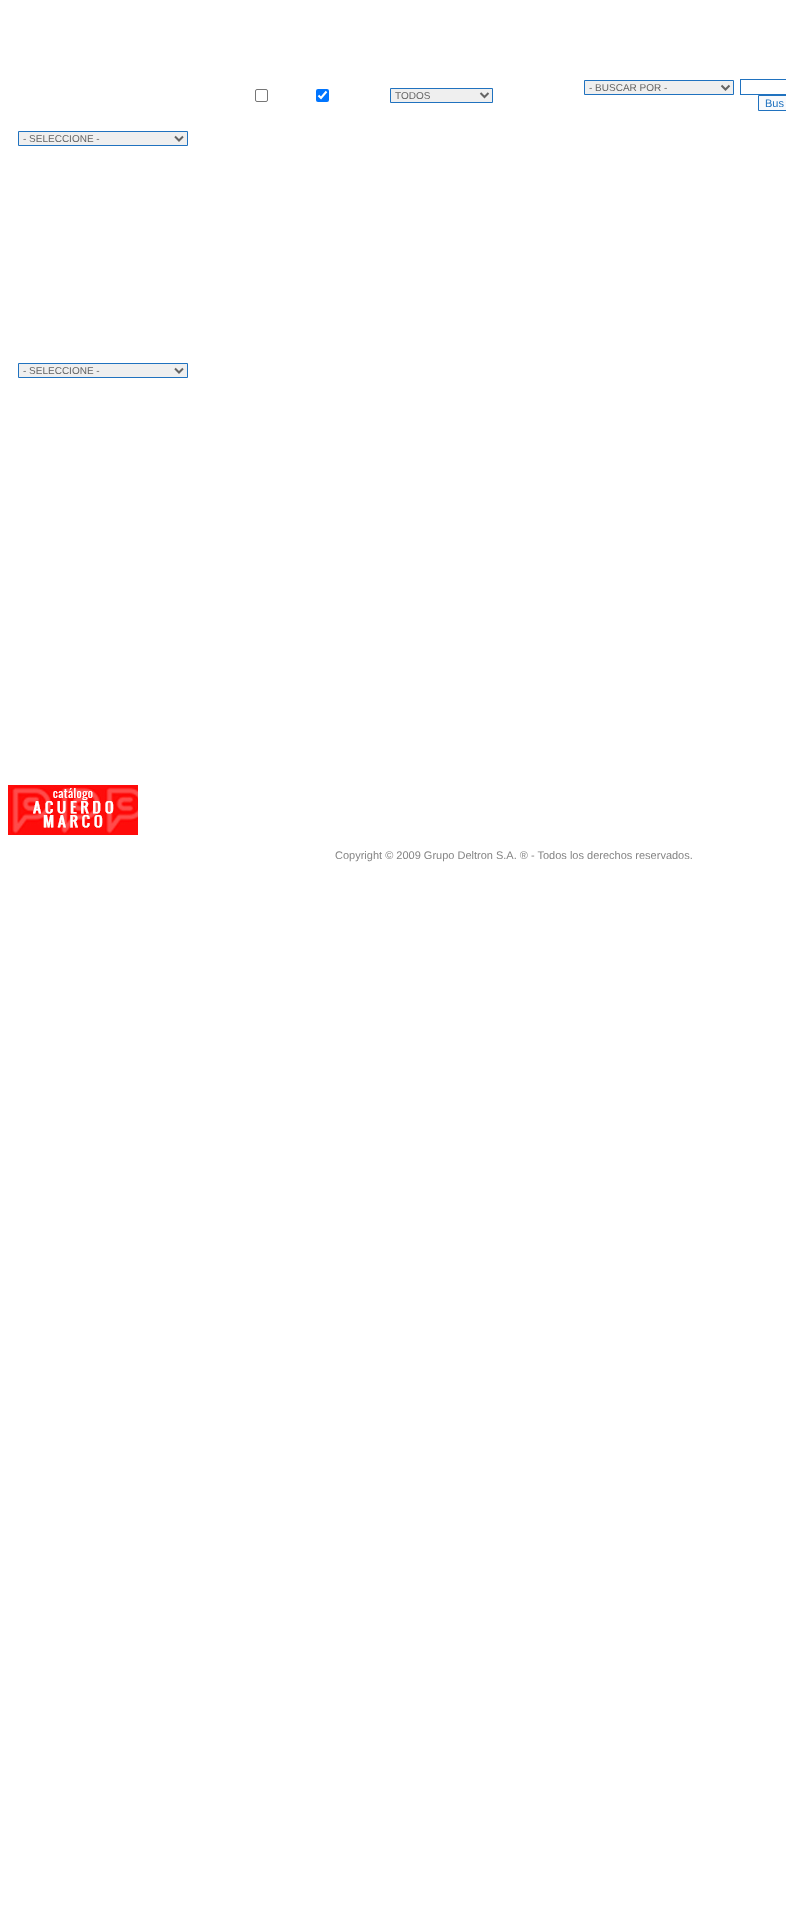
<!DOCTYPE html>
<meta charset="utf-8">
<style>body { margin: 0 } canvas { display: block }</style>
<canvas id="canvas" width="786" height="1923"></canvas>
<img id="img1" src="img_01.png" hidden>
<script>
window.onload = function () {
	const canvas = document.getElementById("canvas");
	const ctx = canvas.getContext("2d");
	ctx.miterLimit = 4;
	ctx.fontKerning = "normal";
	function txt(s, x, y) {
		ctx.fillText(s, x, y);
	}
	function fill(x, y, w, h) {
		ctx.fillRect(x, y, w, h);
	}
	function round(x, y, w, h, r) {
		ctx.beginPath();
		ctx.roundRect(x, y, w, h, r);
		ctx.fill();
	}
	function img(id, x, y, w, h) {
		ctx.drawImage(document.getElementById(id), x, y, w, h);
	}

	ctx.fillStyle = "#FFFFFF";
	fill(0, 0, 786, 1923);
	ctx.beginPath();
	ctx.roundRect(255.5, 89.5, 12, 12, 1.5);
	ctx.strokeStyle = "#767676";
	ctx.stroke();
	ctx.fillStyle = "#0075FF";
	round(316, 89, 13, 13, 2);
	ctx.beginPath();
	ctx.moveTo(318.5, 95.5);
	ctx.lineTo(321, 98);
	ctx.lineTo(326.5, 91.5);
	ctx.strokeStyle = "#FFFFFF";
	ctx.lineWidth = 2.1;
	ctx.stroke();
	ctx.fillStyle = "#EFEFEF";
	ctx.beginPath();
	ctx.rect(390.5, 88.5, 102, 14);
	ctx.fill();
	ctx.strokeStyle = "#2072BF";
	ctx.lineWidth = 1;
	ctx.stroke();
	ctx.beginPath();
	ctx.moveTo(480.5, 93);
	ctx.lineTo(484.5, 97);
	ctx.lineTo(488.5, 93);
	ctx.strokeStyle = "#646464";
	ctx.lineWidth = 2;
	ctx.stroke();
	ctx.beginPath();
	ctx.rect(584.5, 80.5, 149, 14);
	ctx.fill();
	ctx.strokeStyle = "#2072BF";
	ctx.lineWidth = 1;
	ctx.stroke();
	ctx.beginPath();
	ctx.moveTo(721.5, 85.5);
	ctx.lineTo(725.5, 89.5);
	ctx.lineTo(729.5, 85.5);
	ctx.strokeStyle = "#646464";
	ctx.lineWidth = 2;
	ctx.stroke();
	ctx.strokeStyle = "#2072BF";
	ctx.lineWidth = 1;
	ctx.strokeRect(740.5, 79.5, 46, 15);
	ctx.fillStyle = "#F9FAFC";
	ctx.beginPath();
	ctx.rect(758.5, 95.5, 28, 15);
	ctx.fill();
	ctx.stroke();
	ctx.fillStyle = "#EFEFEF";
	ctx.beginPath();
	ctx.rect(18.5, 131.5, 169, 14);
	ctx.fill();
	ctx.stroke();
	ctx.beginPath();
	ctx.moveTo(175, 136.5);
	ctx.lineTo(179, 140.5);
	ctx.lineTo(183, 136.5);
	ctx.strokeStyle = "#646464";
	ctx.lineWidth = 2;
	ctx.stroke();
	ctx.beginPath();
	ctx.rect(18.5, 363.5, 169, 14);
	ctx.fill();
	ctx.strokeStyle = "#2072BF";
	ctx.lineWidth = 1;
	ctx.stroke();
	ctx.beginPath();
	ctx.moveTo(175, 368.5);
	ctx.lineTo(179, 372.5);
	ctx.lineTo(183, 368.5);
	ctx.strokeStyle = "#646464";
	ctx.lineWidth = 2;
	ctx.stroke();
	img("img1", 8, 785, 130, 50);
	ctx.font = "10px Liberation Sans";
	ctx.fillStyle = "#646464";
	txt("TODOS", 395, 99);
	txt("- BUSCAR POR -", 589, 91);
	ctx.font = "11px Liberation Sans";
	ctx.fillStyle = "#2072BF";
	txt("Bus", 765, 107);
	ctx.font = "10px Liberation Sans";
	ctx.fillStyle = "#646464";
	txt("- SELECCIONE -", 23, 142);
	txt("- SELECCIONE -", 23, 374);
	ctx.font = "11px Liberation Sans";
	ctx.fillStyle = "#858585";
	txt("Copyright © 2009 Grupo Deltron S.A. ® - Todos los derechos reservados.", 335, 859);
};
</script>
